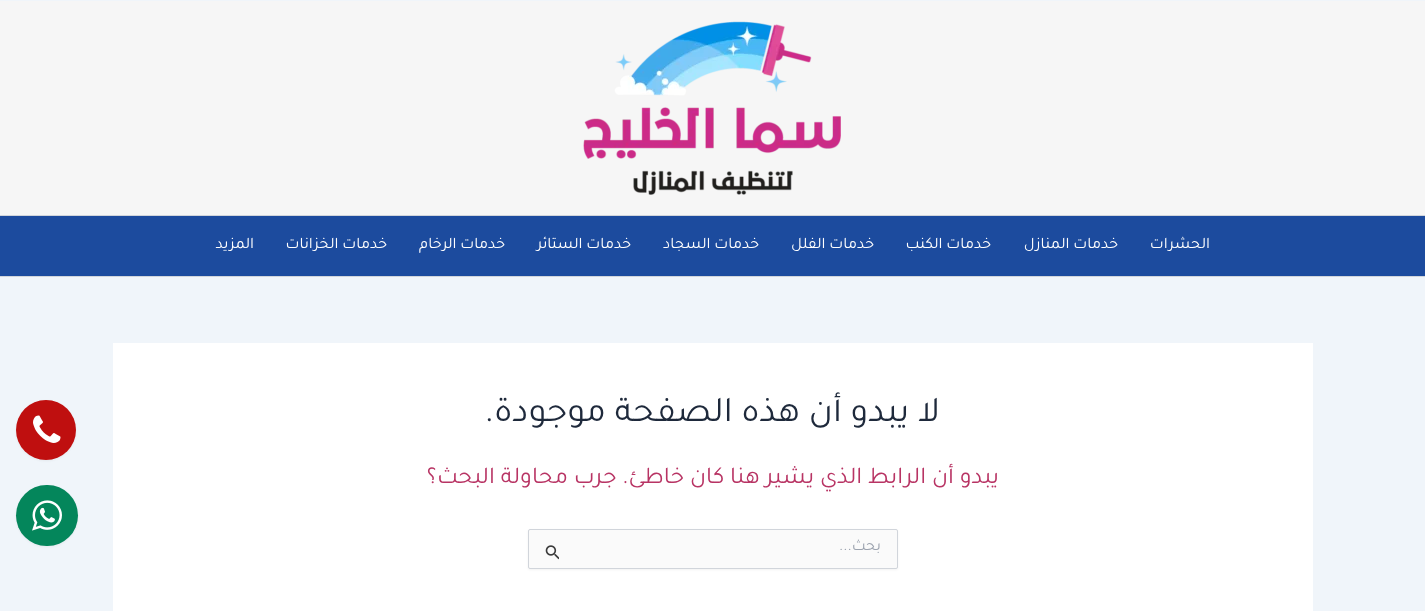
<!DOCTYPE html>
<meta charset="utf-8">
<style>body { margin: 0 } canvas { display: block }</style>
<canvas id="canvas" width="1425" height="611"></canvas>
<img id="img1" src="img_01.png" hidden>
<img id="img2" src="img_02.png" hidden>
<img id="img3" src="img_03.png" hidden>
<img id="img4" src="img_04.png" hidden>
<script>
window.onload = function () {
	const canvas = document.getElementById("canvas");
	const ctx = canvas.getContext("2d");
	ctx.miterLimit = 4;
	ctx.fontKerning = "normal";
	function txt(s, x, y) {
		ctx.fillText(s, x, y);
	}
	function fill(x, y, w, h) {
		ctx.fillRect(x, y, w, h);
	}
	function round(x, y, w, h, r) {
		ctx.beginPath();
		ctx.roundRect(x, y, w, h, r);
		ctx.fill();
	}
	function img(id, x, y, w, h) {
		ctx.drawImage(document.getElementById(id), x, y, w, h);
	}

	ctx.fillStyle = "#F0F5FA";
	fill(0, 0, 1425, 611);
	ctx.fillStyle = "#F6F6F6";
	fill(0, 1, 1425, 214);
	ctx.fillStyle = "#D1D5DB";
	fill(0, 215, 1425, 1);
	img("img1", 583, 21, 258, 174);
	ctx.fillStyle = "#1C4B9E";
	fill(0, 216, 1425, 60);
	ctx.fillStyle = "#D1D5DB";
	fill(0, 276, 1425, 1);
	ctx.fillStyle = "#FFFFFF";
	fill(113, 343, 1200, 268);
	ctx.fillStyle = "rgba(0, 0, 0, 0.05)";
	ctx.filter = "blur(1px)";
	ctx.beginPath();
	ctx.roundRect(528, 530, 370, 40, 2);
	ctx.fill();
	ctx.filter = "none";
	ctx.fillStyle = "#FAFAFA";
	ctx.beginPath();
	ctx.roundRect(528.5, 529.5, 369, 39, 1.5);
	ctx.fill();
	ctx.strokeStyle = "#D1D5DB";
	ctx.stroke();
	img("img2", 545, 545, 14, 15);
	ctx.fillStyle = "rgba(0, 0, 0, 0.05)";
	ctx.filter = "blur(1px)";
	ctx.beginPath();
	ctx.roundRect(16, 401, 60, 60, 30);
	ctx.fill();
	ctx.filter = "none";
	ctx.fillStyle = "#BF0F0F";
	ctx.beginPath();
	ctx.arc(46, 430, 30, 0, Math.PI * 2);
	ctx.fill();
	img("img3", 33, 415, 28, 28);
	ctx.fillStyle = "rgba(0, 0, 0, 0.05)";
	ctx.filter = "blur(1px)";
	ctx.beginPath();
	ctx.roundRect(16, 486, 62, 61, 30.5);
	ctx.fill();
	ctx.filter = "none";
	ctx.fillStyle = "#04865B";
	round(16, 485, 62, 61, 30.5);
	img("img4", 32, 500, 30, 31);
	ctx.direction = "rtl";
	ctx.font = "16px Tajawal";
	ctx.fillStyle = "#FFFFFF";
	txt("الحشرات", 1210, 248);
	txt("خدمات المنازل", 1118, 248);
	txt("خدمات الكنب", 991, 248);
	txt("خدمات الفلل", 874, 248);
	txt("خدمات السجاد", 759, 248);
	txt("خدمات الستائر", 631, 248);
	txt("خدمات الرخام", 505, 248);
	txt("خدمات الخزانات", 387, 248);
	txt("المزيد", 254, 248);
	ctx.font = "36px Tajawal";
	ctx.fillStyle = "#1E293B";
	txt("لا يبدو أن هذه الصفحة موجودة.", 940, 421);
	ctx.font = "24px Tajawal";
	ctx.fillStyle = "#B83464";
	txt("يبدو أن الرابط الذي يشير هنا كان خاطئ. جرب محاولة البحث؟", 999, 483);
	ctx.font = "16px Tajawal";
	ctx.fillStyle = "#9CA3AF";
	txt("بحث...", 881, 550);
};
</script>
